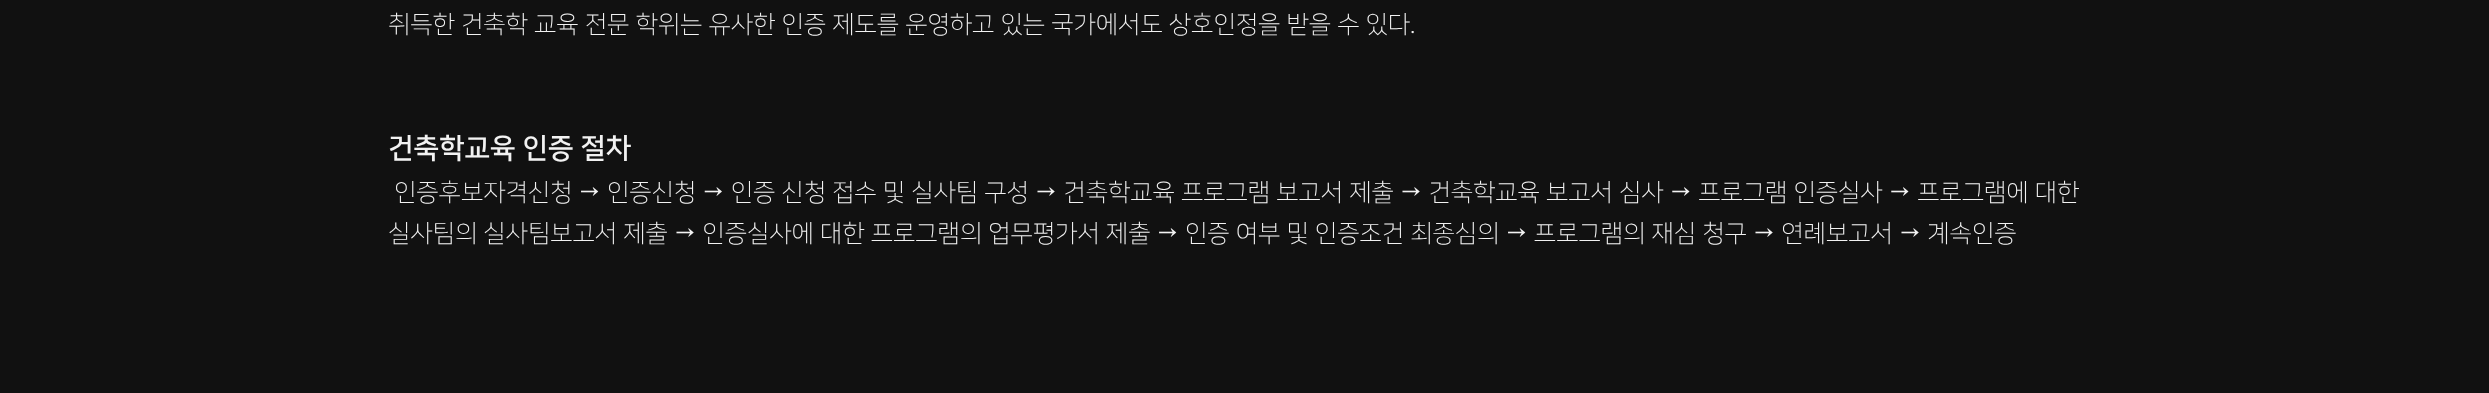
<!DOCTYPE html>
<meta charset="utf-8">
<style>body { margin: 0 } canvas { display: block }</style>
<canvas id="canvas" width="2489" height="393"></canvas>
<script>
window.onload = function () {
	const canvas = document.getElementById("canvas");
	const ctx = canvas.getContext("2d");
	ctx.miterLimit = 4;
	ctx.fontKerning = "normal";
	function txt(s, x, y) {
		ctx.fillText(s, x, y);
	}
	function fill(x, y, w, h) {
		ctx.fillRect(x, y, w, h);
	}

	ctx.fillStyle = "#111111";
	fill(0, 0, 2489, 393);
	ctx.font = "300 24.5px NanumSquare";
	ctx.fillStyle = "#F2F2F2";
	txt("취득한 건축학 교육 전문 학위는 유사한 인증 제도를 운영하고 있는 국가에서도 상호인정을 받을 수 있다.", 388, 32);
	ctx.font = "bold 28px NanumSquare";
	txt("건축학교육 인증 절차", 388, 157);
	ctx.font = "300 24.5px NanumSquare";
	txt("인증후보자격신청 → 인증신청 → 인증 신청 접수 및 실사팀 구성 → 건축학교육 프로그램 보고서 제출 → 건축학교육 보고서 심사 → 프로그램 인증실사 → 프로그램에 대한", 394, 200);
	txt("실사팀의 실사팀보고서 제출 → 인증실사에 대한 프로그램의 업무평가서 제출 → 인증 여부 및 인증조건 최종심의 → 프로그램의 재심 청구 → 연례보고서 → 계속인증", 388, 241);
};
</script>
